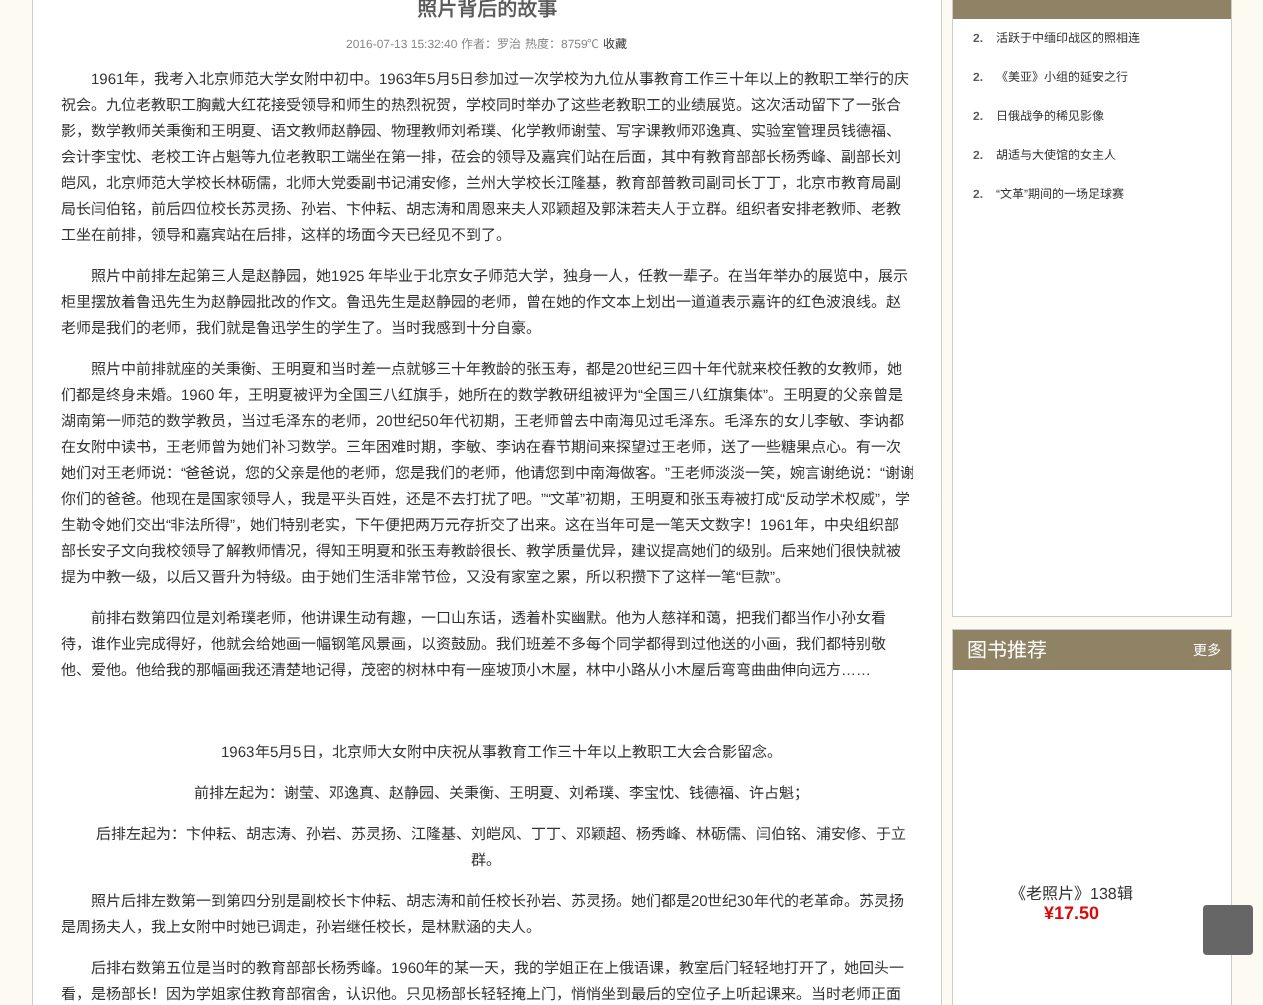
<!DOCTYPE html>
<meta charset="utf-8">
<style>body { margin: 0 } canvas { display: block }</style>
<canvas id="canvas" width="1263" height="1005"></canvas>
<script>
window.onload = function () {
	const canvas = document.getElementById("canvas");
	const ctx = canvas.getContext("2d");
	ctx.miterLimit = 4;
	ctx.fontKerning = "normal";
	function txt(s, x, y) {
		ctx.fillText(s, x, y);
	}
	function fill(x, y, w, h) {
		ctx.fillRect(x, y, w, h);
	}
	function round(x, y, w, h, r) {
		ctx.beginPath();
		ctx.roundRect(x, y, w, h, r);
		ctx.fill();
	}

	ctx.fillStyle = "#FDFAF1";
	fill(0, 0, 1263, 1005);
	ctx.fillStyle = "#FFFFFF";
	ctx.beginPath();
	ctx.rect(32.5, -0.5, 909, 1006);
	ctx.fill();
	ctx.strokeStyle = "#CECECD";
	ctx.stroke();
	fill(953, 19, 278, 597);
	ctx.strokeStyle = "#CCCCCC";
	ctx.strokeRect(952.5, -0.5, 279, 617);
	ctx.fillStyle = "#908365";
	fill(953, 0, 278, 19);
	ctx.fillStyle = "#FFFFFF";
	fill(953, 670, 278, 335);
	ctx.strokeRect(952.5, 629.5, 279, 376);
	ctx.fillStyle = "#908365";
	fill(953, 630, 278, 40);
	ctx.fillStyle = "#666666";
	round(1203, 905, 50, 50, 4);
	ctx.font = "bold 20px Noto Sans CJK SC";
	ctx.fillStyle = "#5A5A5A";
	txt("照片背后的故事", 417, 16);
	ctx.font = "12px Liberation Sans";
	ctx.fillStyle = "#888888";
	txt("2016-07-13 15:32:40", 346, 48);
	ctx.font = "12px Noto Sans CJK SC";
	txt("作者：罗治", 461, 48);
	txt("热度：", 525, 48);
	ctx.font = "12px Liberation Sans";
	txt("8759", 561, 48);
	ctx.font = "12px Noto Sans CJK SC";
	txt("℃", 587, 48);
	ctx.fillStyle = "#333333";
	txt("收藏", 603, 48);
	ctx.font = "15px Liberation Sans";
	txt("1961", 91, 84);
	ctx.font = "15px Noto Sans CJK SC";
	txt("年，我考入北京师范大学女附中初中。", 124, 84);
	ctx.font = "15px Liberation Sans";
	txt("1963", 379, 84);
	ctx.font = "15px Noto Sans CJK SC";
	txt("年", 412, 84);
	ctx.font = "15px Liberation Sans";
	txt("5", 427, 84);
	ctx.font = "15px Noto Sans CJK SC";
	txt("月", 436, 84);
	ctx.font = "15px Liberation Sans";
	txt("5", 451, 84);
	ctx.font = "15px Noto Sans CJK SC";
	txt("日参加过一次学校为九位从事教育工作三十年以上的教职工举行的庆", 459, 84);
	txt("祝会。九位老教职工胸戴大红花接受领导和师生的热烈祝贺，学校同时举办了这些老教职工的业绩展览。这次活动留下了一张合", 61, 110);
	txt("影，数学教师关秉衡和王明夏、语文教师赵静园、物理教师刘希璞、化学教师谢莹、写字课教师邓逸真、实验室管理员钱德福、", 61, 136);
	txt("会计李宝忱、老校工许占魁等九位老教职工端坐在第一排，莅会的领导及嘉宾们站在后面，其中有教育部部长杨秀峰、副部长刘", 61, 162);
	txt("皑风，北京师范大学校长林砺儒，北师大党委副书记浦安修，兰州大学校长江隆基，教育部普教司副司长丁丁，北京市教育局副", 61, 188);
	txt("局长闫伯铭，前后四位校长苏灵扬、孙岩、卞仲耘、胡志涛和周恩来夫人邓颖超及郭沫若夫人于立群。组织者安排老教师、老教", 61, 214);
	txt("工坐在前排，领导和嘉宾站在后排，这样的场面今天已经见不到了。", 61, 240);
	txt("照片中前排左起第三人是赵静园，她", 91, 281);
	ctx.font = "15px Liberation Sans";
	txt("1925", 331, 281);
	ctx.font = "15px Noto Sans CJK SC";
	txt("年毕业于北京女子师范大学，独身一人，任教一辈子。在当年举办的展览中，展示", 368, 281);
	txt("柜里摆放着鲁迅先生为赵静园批改的作文。鲁迅先生是赵静园的老师，曾在她的作文本上划出一道道表示嘉许的红色波浪线。赵", 61, 307);
	txt("老师是我们的老师，我们就是鲁迅学生的学生了。当时我感到十分自豪。", 61, 333);
	txt("照片中前排就座的关秉衡、王明夏和当时差一点就够三十年教龄的张玉寿，都是", 91, 374);
	ctx.font = "15px Liberation Sans";
	txt("20", 616, 374);
	ctx.font = "15px Noto Sans CJK SC";
	txt("世纪三四十年代就来校任教的女教师，她", 632, 374);
	txt("们都是终身未婚。", 61, 400);
	ctx.font = "15px Liberation Sans";
	txt("1960", 181, 400);
	ctx.font = "15px Noto Sans CJK SC";
	txt("年，王明夏被评为全国三八红旗手，她所在的数学教研组被评为", 218, 400);
	ctx.font = "15px Liberation Sans";
	txt("“", 638, 400);
	ctx.font = "15px Noto Sans CJK SC";
	txt("全国三八红旗集体", 643, 400);
	ctx.font = "15px Liberation Sans";
	txt("”", 763, 400);
	ctx.font = "15px Noto Sans CJK SC";
	txt("。王明夏的父亲曾是", 768, 400);
	txt("湖南第一师范的数学教员，当过毛泽东的老师，", 61, 426);
	ctx.font = "15px Liberation Sans";
	txt("20", 376, 426);
	ctx.font = "15px Noto Sans CJK SC";
	txt("世纪", 392, 426);
	ctx.font = "15px Liberation Sans";
	txt("50", 422, 426);
	ctx.font = "15px Noto Sans CJK SC";
	txt("年代初期，王老师曾去中南海见过毛泽东。毛泽东的女儿李敏、李讷都", 439, 426);
	txt("在女附中读书，王老师曾为她们补习数学。三年困难时期，李敏、李讷在春节期间来探望过王老师，送了一些糖果点心。有一次", 61, 452);
	txt("她们对王老师说：", 61, 478);
	ctx.font = "15px Liberation Sans";
	txt("“", 181, 478);
	ctx.font = "15px Noto Sans CJK SC";
	txt("爸爸说，您的父亲是他的老师，您是我们的老师，他请您到中南海做客。", 185, 478);
	ctx.font = "15px Liberation Sans";
	txt("”", 665, 478);
	ctx.font = "15px Noto Sans CJK SC";
	txt("王老师淡淡一笑，婉言谢绝说：", 670, 478);
	ctx.font = "15px Liberation Sans";
	txt("“", 880, 478);
	ctx.save();
	ctx.beginPath();
	ctx.rect(61, 356, 852, 234);
	ctx.clip();
	ctx.font = "15px Noto Sans CJK SC";
	txt("谢谢", 885, 478);
	ctx.restore();
	ctx.font = "15px Noto Sans CJK SC";
	txt("你们的爸爸。他现在是国家领导人，我是平头百姓，还是不去打扰了吧。", 61, 504);
	ctx.font = "15px Liberation Sans";
	txt("”“", 541, 504);
	ctx.font = "15px Noto Sans CJK SC";
	txt("文革", 550, 504);
	ctx.font = "15px Liberation Sans";
	txt("”", 580, 504);
	ctx.font = "15px Noto Sans CJK SC";
	txt("初期，王明夏和张玉寿被打成", 585, 504);
	ctx.font = "15px Liberation Sans";
	txt("“", 780, 504);
	ctx.font = "15px Noto Sans CJK SC";
	txt("反动学术权威", 785, 504);
	ctx.font = "15px Liberation Sans";
	txt("”", 875, 504);
	ctx.font = "15px Noto Sans CJK SC";
	txt("，学", 880, 504);
	txt("生勒令她们交出", 61, 530);
	ctx.font = "15px Liberation Sans";
	txt("“", 166, 530);
	ctx.font = "15px Noto Sans CJK SC";
	txt("非法所得", 170, 530);
	ctx.font = "15px Liberation Sans";
	txt("”", 230, 530);
	ctx.font = "15px Noto Sans CJK SC";
	txt("，她们特别老实，下午便把两万元存折交了出来。这在当年可是一笔天文数字！", 235, 530);
	ctx.font = "15px Liberation Sans";
	txt("1961", 760, 530);
	ctx.font = "15px Noto Sans CJK SC";
	txt("年，中央组织部", 794, 530);
	txt("部长安子文向我校领导了解教师情况，得知王明夏和张玉寿教龄很长、教学质量优异，建议提高她们的级别。后来她们很快就被", 61, 556);
	txt("提为中教一级，以后又晋升为特级。由于她们生活非常节俭，又没有家室之累，所以积攒下了这样一笔", 61, 582);
	ctx.font = "15px Liberation Sans";
	txt("“", 736, 582);
	ctx.font = "15px Noto Sans CJK SC";
	txt("巨款", 740, 582);
	ctx.font = "15px Liberation Sans";
	txt("”", 770, 582);
	ctx.font = "15px Noto Sans CJK SC";
	txt("。", 775, 582);
	txt("前排右数第四位是刘希璞老师，他讲课生动有趣，一口山东话，透着朴实幽默。他为人慈祥和蔼，把我们都当作小孙女看", 91, 623);
	txt("待，谁作业完成得好，他就会给她画一幅钢笔风景画，以资鼓励。我们班差不多每个同学都得到过他送的小画，我们都特别敬", 61, 649);
	txt("他、爱他。他给我的那幅画我还清楚地记得，茂密的树林中有一座坡顶小木屋，林中小路从小木屋后弯弯曲曲伸向远方", 61, 675);
	ctx.font = "15px Liberation Sans";
	txt("……", 841, 675);
	txt("1963", 221, 757);
	ctx.font = "15px Noto Sans CJK SC";
	txt("年", 255, 757);
	ctx.font = "15px Liberation Sans";
	txt("5", 270, 757);
	ctx.font = "15px Noto Sans CJK SC";
	txt("月", 278, 757);
	ctx.font = "15px Liberation Sans";
	txt("5", 293, 757);
	ctx.font = "15px Noto Sans CJK SC";
	txt("日，北京师大女附中庆祝从事教育工作三十年以上教职工大会合影留念。", 302, 757);
	txt("前排左起为：谢莹、邓逸真、赵静园、关秉衡、王明夏、刘希璞、李宝忱、钱德福、许占魁；", 194, 798);
	txt("后排左起为：卞仲耘、胡志涛、孙岩、苏灵扬、江隆基、刘皑风、丁丁、邓颖超、杨秀峰、林砺儒、闫伯铭、浦安修、于立", 96, 839);
	txt("群。", 471, 865);
	txt("照片后排左数第一到第四分别是副校长卞仲耘、胡志涛和前任校长孙岩、苏灵扬。她们都是", 91, 906);
	ctx.font = "15px Liberation Sans";
	txt("20", 691, 906);
	ctx.font = "15px Noto Sans CJK SC";
	txt("世纪", 707, 906);
	ctx.font = "15px Liberation Sans";
	txt("30", 737, 906);
	ctx.font = "15px Noto Sans CJK SC";
	txt("年代的老革命。苏灵扬", 754, 906);
	txt("是周扬夫人，我上女附中时她已调走，孙岩继任校长，是林默涵的夫人。", 61, 932);
	txt("后排右数第五位是当时的教育部部长杨秀峰。", 91, 973);
	ctx.font = "15px Liberation Sans";
	txt("1960", 391, 973);
	ctx.font = "15px Noto Sans CJK SC";
	txt("年的某一天，我的学姐正在上俄语课，教室后门轻轻地打开了，她回头一", 424, 973);
	txt("看，是杨部长！因为学姐家住教育部宿舍，认识他。只见杨部长轻轻掩上门，悄悄坐到最后的空位子上听起课来。当时老师正面", 61, 999);
	ctx.font = "bold 12px Liberation Sans";
	ctx.fillStyle = "#5A5A5A";
	txt("2.", 973, 42);
	ctx.font = "12px Noto Sans CJK SC";
	ctx.fillStyle = "#333333";
	txt("活跃于中缅印战区的照相连", 996, 42);
	ctx.font = "bold 12px Liberation Sans";
	ctx.fillStyle = "#5A5A5A";
	txt("2.", 973, 81);
	ctx.font = "12px Noto Sans CJK SC";
	ctx.fillStyle = "#333333";
	txt("《美亚》小组的延安之行", 996, 81);
	ctx.font = "bold 12px Liberation Sans";
	ctx.fillStyle = "#5A5A5A";
	txt("2.", 973, 120);
	ctx.font = "12px Noto Sans CJK SC";
	ctx.fillStyle = "#333333";
	txt("日俄战争的稀见影像", 996, 120);
	ctx.font = "bold 12px Liberation Sans";
	ctx.fillStyle = "#5A5A5A";
	txt("2.", 973, 159);
	ctx.font = "12px Noto Sans CJK SC";
	ctx.fillStyle = "#333333";
	txt("胡适与大使馆的女主人", 996, 159);
	ctx.font = "bold 12px Liberation Sans";
	ctx.fillStyle = "#5A5A5A";
	txt("2.", 973, 198);
	ctx.font = "12px Liberation Sans";
	ctx.fillStyle = "#333333";
	txt("“", 996, 198);
	ctx.font = "12px Noto Sans CJK SC";
	txt("文革", 1000, 198);
	ctx.font = "12px Liberation Sans";
	txt("”", 1024, 198);
	ctx.font = "12px Noto Sans CJK SC";
	txt("期间的一场足球赛", 1028, 198);
	ctx.font = "20px Noto Sans CJK SC";
	ctx.fillStyle = "#FFFFFF";
	txt("图书推荐", 967, 657);
	ctx.font = "14px Noto Sans CJK SC";
	txt("更多", 1193, 655);
	ctx.font = "16px Noto Sans CJK SC";
	ctx.fillStyle = "#333333";
	txt("《老照片》", 1010, 899);
	ctx.font = "16px Liberation Sans";
	txt("138", 1090, 899);
	ctx.font = "16px Noto Sans CJK SC";
	txt("辑", 1117, 899);
	ctx.font = "bold 18px Liberation Sans";
	ctx.fillStyle = "#DD0909";
	txt("¥17.50", 1044, 919);
};
</script>
